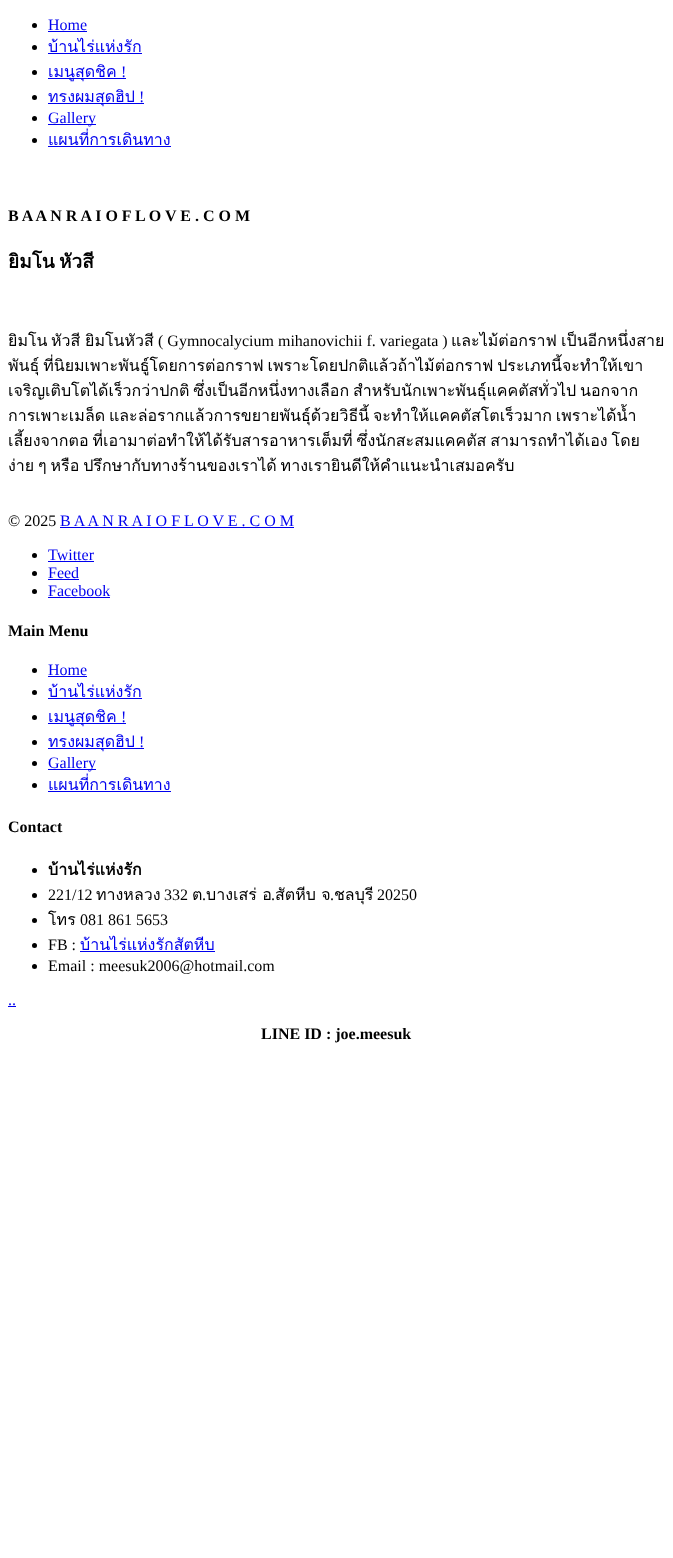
<!DOCTYPE html>
<meta charset="utf-8">
<style>body { margin: 0 } canvas { display: block }</style>
<canvas id="canvas" width="673" height="1558"></canvas>
<script>
window.onload = function () {
	const canvas = document.getElementById("canvas");
	const ctx = canvas.getContext("2d");
	ctx.miterLimit = 4;
	ctx.fontKerning = "normal";
	function txt(s, x, y) {
		ctx.fillText(s, x, y);
	}
	function fill(x, y, w, h) {
		ctx.fillRect(x, y, w, h);
	}

	ctx.fillStyle = "#FFFFFF";
	fill(0, 0, 673, 1558);
	ctx.fillStyle = "#000000";
	ctx.beginPath();
	ctx.arc(34.5, 25.5, 2.5, 0, Math.PI * 2);
	ctx.fill();
	ctx.fillStyle = "#0000EE";
	fill(48, 31, 39, 1);
	ctx.fillStyle = "#000000";
	ctx.beginPath();
	ctx.arc(34.5, 47.5, 2.5, 0, Math.PI * 2);
	ctx.fill();
	ctx.fillStyle = "#0000EE";
	fill(48, 53, 94, 1);
	ctx.fillStyle = "#000000";
	ctx.beginPath();
	ctx.arc(34.5, 72.5, 2.5, 0, Math.PI * 2);
	ctx.fill();
	ctx.fillStyle = "#0000EE";
	fill(48, 78, 78, 1);
	ctx.fillStyle = "#000000";
	ctx.beginPath();
	ctx.arc(34.5, 97.5, 2.5, 0, Math.PI * 2);
	ctx.fill();
	ctx.fillStyle = "#0000EE";
	fill(48, 103, 96, 1);
	ctx.fillStyle = "#000000";
	ctx.beginPath();
	ctx.arc(34.5, 118.5, 2.5, 0, Math.PI * 2);
	ctx.fill();
	ctx.fillStyle = "#0000EE";
	fill(48, 124, 48, 1);
	ctx.fillStyle = "#000000";
	ctx.beginPath();
	ctx.arc(34.5, 140.5, 2.5, 0, Math.PI * 2);
	ctx.fill();
	ctx.fillStyle = "#0000EE";
	fill(48, 146, 123, 1);
	fill(60, 527, 234, 1);
	ctx.fillStyle = "#000000";
	ctx.beginPath();
	ctx.arc(34.5, 555.5, 2.5, 0, Math.PI * 2);
	ctx.fill();
	ctx.fillStyle = "#0000EE";
	fill(48, 561, 46, 1);
	ctx.fillStyle = "#000000";
	ctx.beginPath();
	ctx.arc(34.5, 573.5, 2.5, 0, Math.PI * 2);
	ctx.fill();
	ctx.fillStyle = "#0000EE";
	fill(48, 579, 31, 1);
	ctx.fillStyle = "#000000";
	ctx.beginPath();
	ctx.arc(34.5, 591.5, 2.5, 0, Math.PI * 2);
	ctx.fill();
	ctx.fillStyle = "#0000EE";
	fill(48, 597, 62, 1);
	ctx.fillStyle = "#000000";
	ctx.beginPath();
	ctx.arc(34.5, 670.5, 2.5, 0, Math.PI * 2);
	ctx.fill();
	ctx.fillStyle = "#0000EE";
	fill(48, 676, 39, 1);
	ctx.fillStyle = "#000000";
	ctx.beginPath();
	ctx.arc(34.5, 692.5, 2.5, 0, Math.PI * 2);
	ctx.fill();
	ctx.fillStyle = "#0000EE";
	fill(48, 698, 94, 1);
	ctx.fillStyle = "#000000";
	ctx.beginPath();
	ctx.arc(34.5, 717.5, 2.5, 0, Math.PI * 2);
	ctx.fill();
	ctx.fillStyle = "#0000EE";
	fill(48, 723, 78, 1);
	ctx.fillStyle = "#000000";
	ctx.beginPath();
	ctx.arc(34.5, 742.5, 2.5, 0, Math.PI * 2);
	ctx.fill();
	ctx.fillStyle = "#0000EE";
	fill(48, 748, 96, 1);
	ctx.fillStyle = "#000000";
	ctx.beginPath();
	ctx.arc(34.5, 763.5, 2.5, 0, Math.PI * 2);
	ctx.fill();
	ctx.fillStyle = "#0000EE";
	fill(48, 769, 48, 1);
	ctx.fillStyle = "#000000";
	ctx.beginPath();
	ctx.arc(34.5, 785.5, 2.5, 0, Math.PI * 2);
	ctx.fill();
	ctx.fillStyle = "#0000EE";
	fill(48, 791, 123, 1);
	ctx.fillStyle = "#000000";
	ctx.beginPath();
	ctx.arc(34.5, 870.5, 2.5, 0, Math.PI * 2);
	ctx.fill();
	ctx.beginPath();
	ctx.arc(34.5, 895.5, 2.5, 0, Math.PI * 2);
	ctx.fill();
	ctx.beginPath();
	ctx.arc(34.5, 920.5, 2.5, 0, Math.PI * 2);
	ctx.fill();
	ctx.beginPath();
	ctx.arc(34.5, 945.5, 2.5, 0, Math.PI * 2);
	ctx.fill();
	ctx.fillStyle = "#0000EE";
	fill(80, 951, 135, 1);
	ctx.fillStyle = "#000000";
	ctx.beginPath();
	ctx.arc(34.5, 966.5, 2.5, 0, Math.PI * 2);
	ctx.fill();
	ctx.fillStyle = "#0000EE";
	fill(8, 1006, 8, 1);
	ctx.font = "16px Liberation Serif";
	txt("Home", 48, 30);
	ctx.font = "16px Loma";
	txt("บ้านไร่แห่งรัก", 48, 52);
	txt("เมนูสุดชิค", 48, 77);
	ctx.font = "16px Liberation Serif";
	txt("!", 121, 77);
	ctx.font = "16px Loma";
	txt("ทรงผมสุดฮิป", 48, 102);
	ctx.font = "16px Liberation Serif";
	txt("!", 139, 102);
	txt("Gallery", 48, 123);
	ctx.font = "16px Loma";
	txt("แผนที่การเดินทาง", 48, 145);
	ctx.font = "bold 16px Liberation Serif";
	ctx.fillStyle = "#000000";
	txt("B A A N R A I O F L O V E . C O M", 8, 221);
	ctx.font = "bold 19px Loma";
	txt("ยิมโน", 8, 268);
	txt("หัวสี", 59, 268);
	ctx.font = "16px Loma";
	txt("ยิมโน", 8, 346);
	txt("หัวสี", 51, 346);
	txt("ยิมโนหัวสี", 85, 346);
	ctx.font = "16px Liberation Serif";
	txt("( Gymnocalycium mihanovichii f. variegata )", 158, 346);
	ctx.font = "16px Loma";
	txt("และไม้ต่อกราฟ", 451, 346);
	txt("เป็นอีกหนึ่งสาย", 561, 346);
	ctx.wordSpacing = "-1.5px";
	txt("พันธุ์ ที่นิยมเพาะพันธ์ูโดยการต่อกราฟ เพราะโดยปกติแล้วถ้าไม้ต่อกราฟ ประเภทนี้จะทำให้เขา", 8, 371);
	txt("เจริญเติบโตได้เร็วกว่าปกติ ซึ่งเป็นอีกหนึ่งทางเลือก สำหรับนักเพาะพันธุ์แคคตัสทั่วไป นอกจาก", 8, 396);
	txt("การเพาะเมล็ด และล่อรากแล้วการขยายพันธุ์ด้วยวิธีนี้ จะทำให้แคคตัสโตเร็วมาก เพราะได้น้ำ", 8, 421);
	txt("เลี้ยงจากตอ ที่เอามาต่อทำให้ได้รับสารอาหารเต็มที่ ซึ่งนักสะสมแคคตัส สามารถทำได้เอง โดย", 8, 446);
	txt("ง่าย ๆ หรือ ปรึกษากับทางร้านของเราได้ ทางเรายินดีให้คำแนะนำเสมอครับ", 8, 471);
	ctx.wordSpacing = "0px";
	ctx.font = "16px Liberation Serif";
	txt("© 2025", 8, 526);
	ctx.fillStyle = "#0000EE";
	txt("B A A N R A I O F L O V E . C O M", 60, 526);
	txt("Twitter", 48, 560);
	txt("Feed", 48, 578);
	txt("Facebook", 48, 596);
	ctx.font = "bold 16px Liberation Serif";
	ctx.fillStyle = "#000000";
	txt("Main Menu", 8, 636);
	ctx.font = "16px Liberation Serif";
	ctx.fillStyle = "#0000EE";
	txt("Home", 48, 675);
	ctx.font = "16px Loma";
	txt("บ้านไร่แห่งรัก", 48, 697);
	txt("เมนูสุดชิค", 48, 722);
	ctx.font = "16px Liberation Serif";
	txt("!", 121, 722);
	ctx.font = "16px Loma";
	txt("ทรงผมสุดฮิป", 48, 747);
	ctx.font = "16px Liberation Serif";
	txt("!", 139, 747);
	txt("Gallery", 48, 768);
	ctx.font = "16px Loma";
	txt("แผนที่การเดินทาง", 48, 790);
	ctx.font = "bold 16px Liberation Serif";
	ctx.fillStyle = "#000000";
	txt("Contact", 8, 832);
	ctx.font = "bold 16px Loma";
	txt("บ้านไร่แห่งรัก", 48, 875);
	ctx.font = "16px Liberation Serif";
	txt("221/12", 48, 900);
	ctx.font = "16px Loma";
	txt("ทางหลวง", 96, 900);
	ctx.font = "16px Liberation Serif";
	txt("332", 164, 900);
	ctx.font = "16px Loma";
	txt("ต", 192, 900);
	txt("บางเสร่ อ", 206, 900);
	txt("ชลบุรี", 334, 900);
	ctx.font = "16px Liberation Serif";
	txt("20250", 377, 900);
	txt(".", 202, 900);
	txt(".", 271, 900);
	ctx.font = "16px Loma";
	txt("สัตหีบ จ", 275, 900);
	ctx.font = "16px Liberation Serif";
	txt(".", 330, 900);
	ctx.font = "16px Loma";
	txt("โทร", 48, 925);
	ctx.font = "16px Liberation Serif";
	txt("081 861 5653", 80, 925);
	txt("FB :", 48, 950);
	ctx.font = "16px Loma";
	ctx.fillStyle = "#0000EE";
	txt("บ้านไร่แห่งรักสัตหีบ", 80, 950);
	ctx.font = "16px Liberation Serif";
	ctx.fillStyle = "#000000";
	txt("Email : meesuk2006@hotmail.com", 48, 971);
	ctx.fillStyle = "#0000EE";
	txt("..", 8, 1005);
	ctx.font = "bold 16px Liberation Serif";
	ctx.fillStyle = "#000000";
	txt("LINE ID : joe.meesuk", 261, 1039);
};
</script>
